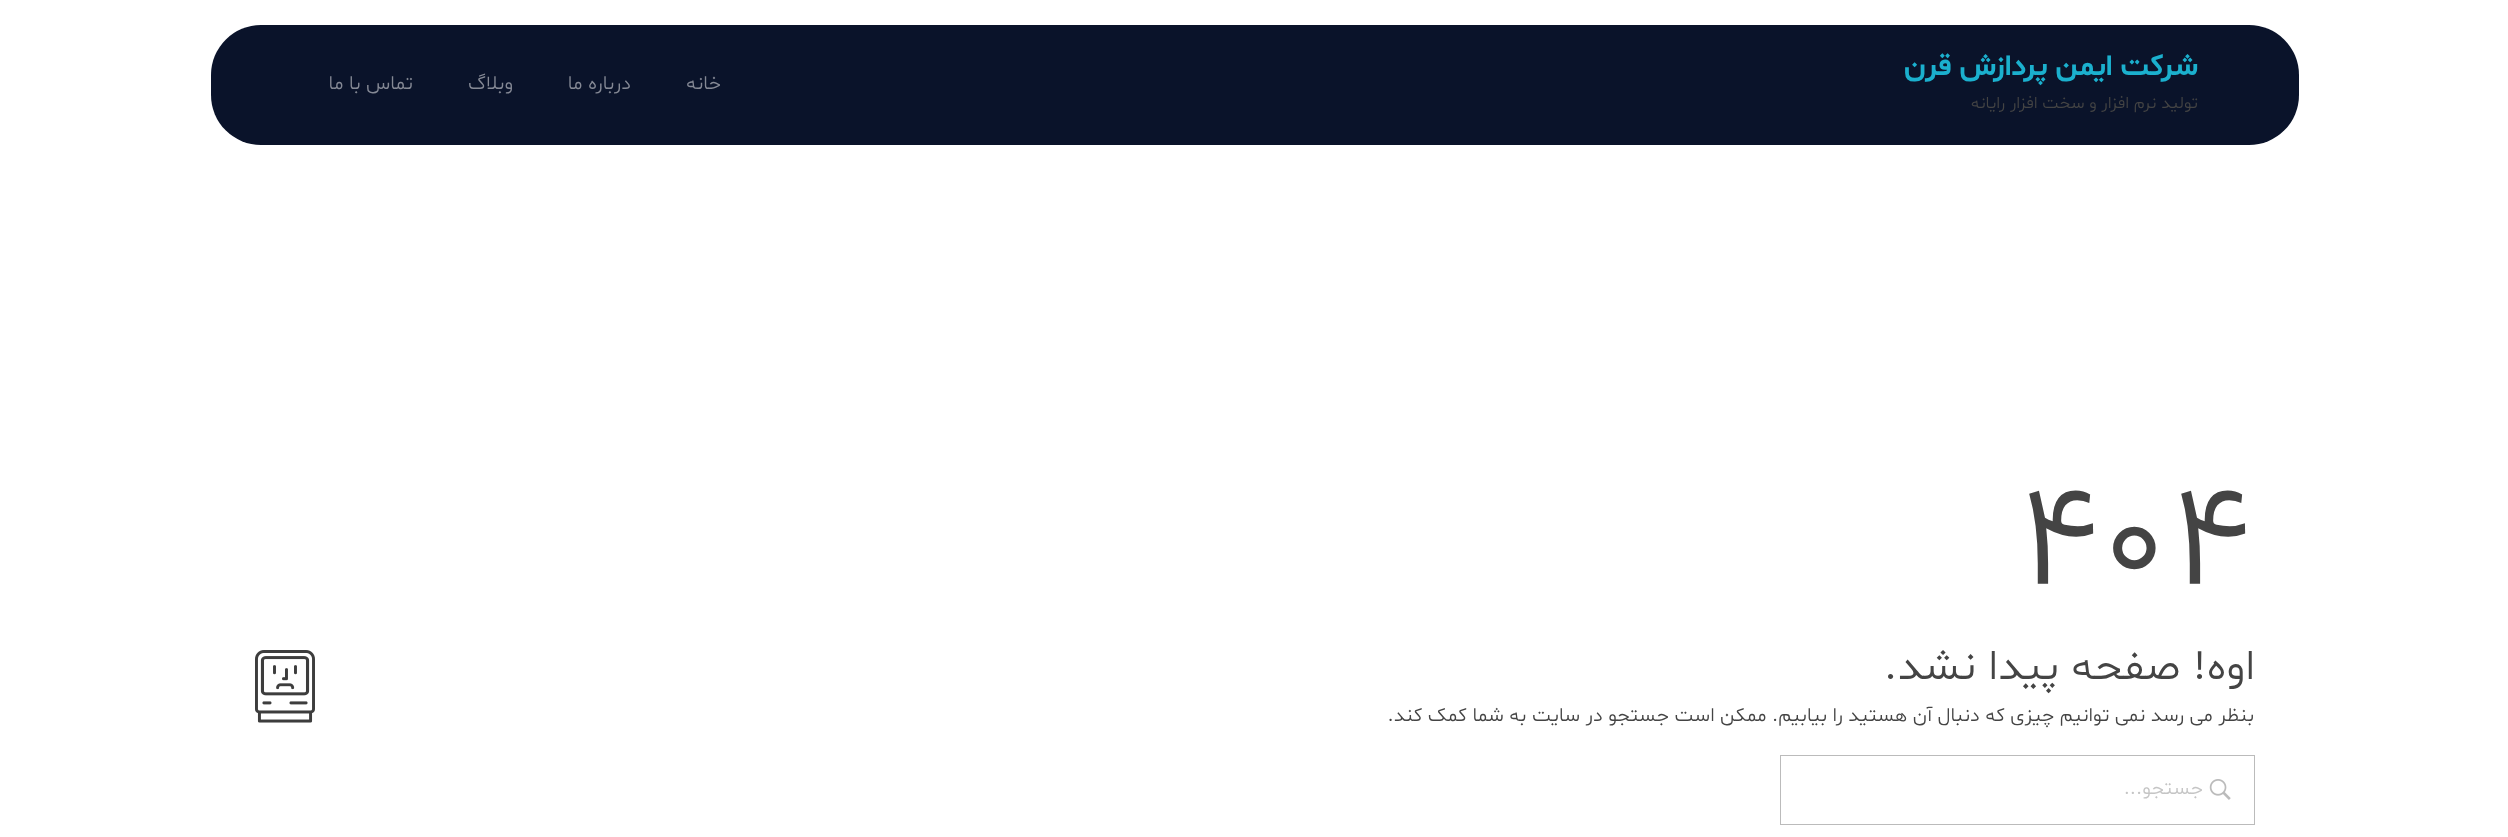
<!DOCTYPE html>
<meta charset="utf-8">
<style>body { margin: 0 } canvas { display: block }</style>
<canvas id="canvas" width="2508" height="837"></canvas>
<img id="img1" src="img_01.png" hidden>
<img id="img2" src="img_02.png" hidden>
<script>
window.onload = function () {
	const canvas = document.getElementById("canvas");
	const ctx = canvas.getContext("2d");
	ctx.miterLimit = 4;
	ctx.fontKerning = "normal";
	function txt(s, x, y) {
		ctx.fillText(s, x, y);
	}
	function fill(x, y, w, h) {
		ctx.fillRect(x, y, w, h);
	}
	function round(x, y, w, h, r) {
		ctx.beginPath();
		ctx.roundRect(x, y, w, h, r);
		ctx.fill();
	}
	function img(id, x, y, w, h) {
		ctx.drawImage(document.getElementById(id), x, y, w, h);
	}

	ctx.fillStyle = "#FFFFFF";
	fill(0, 0, 2508, 837);
	ctx.fillStyle = "#0A132A";
	round(211, 25, 2088, 120, 50);
	img("img1", 255, 650, 60, 73);
	ctx.strokeStyle = "#BBBBBB";
	ctx.strokeRect(1780.5, 755.5, 474, 69);
	img("img2", 2209, 779, 22, 21);
	ctx.direction = "rtl";
	ctx.font = "bold 30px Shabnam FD";
	ctx.fillStyle = "#1BB0CE";
	txt("شرکت ایمن پردازش قرن", 2198, 75);
	ctx.font = "300 17.25px Shabnam FD";
	ctx.fillStyle = "#444444";
	txt("تولید نرم افزار و سخت افزار رایانه", 2198, 108);
	ctx.font = "300 20px Shabnam FD";
	ctx.fillStyle = "#858995";
	txt("خانه", 721, 89);
	txt("درباره ما", 631, 89);
	txt("وبلاگ", 513, 89);
	txt("تماس با ما", 413, 89);
	ctx.direction = "ltr";
	ctx.font = "300 150px Shabnam FD";
	ctx.fillStyle = "#444444";
	txt("404", 2015, 584);
	ctx.direction = "rtl";
	ctx.font = "300 44px Shabnam FD";
	txt("اوه! صفحه پیدا نشد.", 2255, 679);
	ctx.font = "300 20px Shabnam FD";
	txt("بنظر می رسد نمی توانیم چیزی که دنبال آن هستید را بیابیم. ممکن است جستجو در سایت به شما کمک کند.", 2254, 721);
	ctx.fillStyle = "#C5C5C5";
	txt("جستجو...", 2203, 794);
};
</script>
